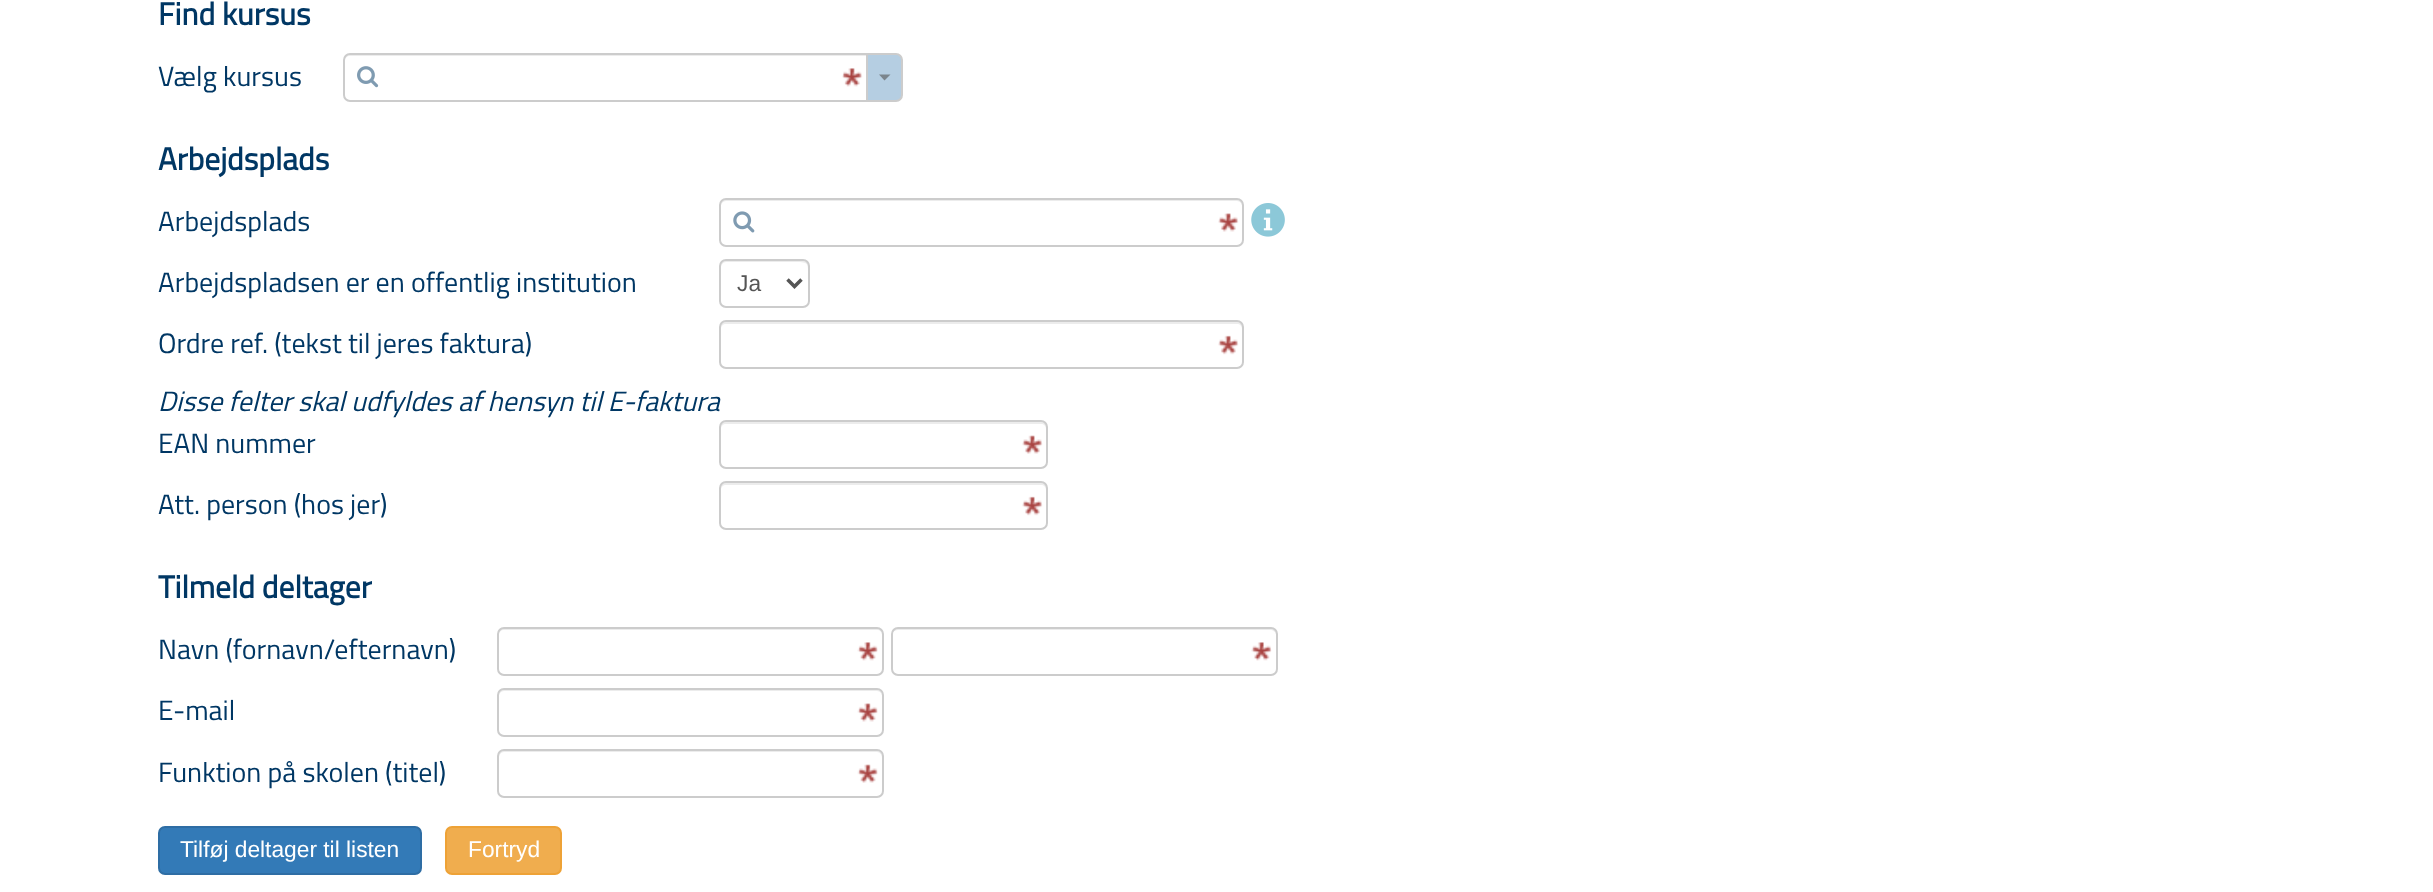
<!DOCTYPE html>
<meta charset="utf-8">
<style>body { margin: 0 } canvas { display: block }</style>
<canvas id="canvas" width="2433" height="892"></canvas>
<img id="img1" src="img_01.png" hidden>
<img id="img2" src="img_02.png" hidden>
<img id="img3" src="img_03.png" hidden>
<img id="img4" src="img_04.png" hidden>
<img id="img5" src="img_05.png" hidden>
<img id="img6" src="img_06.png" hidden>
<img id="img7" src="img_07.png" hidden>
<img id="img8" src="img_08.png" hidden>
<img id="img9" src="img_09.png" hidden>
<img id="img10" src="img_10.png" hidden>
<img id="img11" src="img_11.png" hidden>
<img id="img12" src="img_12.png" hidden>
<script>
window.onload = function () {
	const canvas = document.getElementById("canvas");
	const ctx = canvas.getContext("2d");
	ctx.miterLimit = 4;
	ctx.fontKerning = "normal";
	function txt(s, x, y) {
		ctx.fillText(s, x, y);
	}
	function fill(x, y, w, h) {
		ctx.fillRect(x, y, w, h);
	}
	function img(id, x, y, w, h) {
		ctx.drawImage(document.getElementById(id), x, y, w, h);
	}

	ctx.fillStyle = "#FFFFFF";
	fill(0, 0, 2433, 892);
	ctx.fillStyle = "#B5CEE2";
	ctx.beginPath();
	ctx.roundRect(867, 54, 35, 47, [0, 6, 6, 0]);
	ctx.fill();
	ctx.strokeStyle = "#CCCCCC";
	ctx.lineWidth = 2;
	ctx.stroke();
	ctx.fillStyle = "#FFFFFF";
	ctx.beginPath();
	ctx.roundRect(343, 53, 525, 49, [7, 0, 0, 7]);
	ctx.fill();
	img("img1", 842, 68, 21, 19);
	ctx.fillStyle = "#ECECEC";
	ctx.beginPath();
	ctx.moveTo(350, 56);
	ctx.lineTo(866, 56);
	ctx.lineTo(866, 54);
	ctx.lineTo(350, 54);
	ctx.bezierCurveTo(347, 54, 345, 56, 345, 59);
	ctx.lineTo(345, 61);
	ctx.bezierCurveTo(345, 58, 347, 56, 350, 56);
	ctx.closePath();
	ctx.fill();
	ctx.beginPath();
	ctx.roundRect(344, 54, 523, 47, [6, 0, 0, 6]);
	ctx.stroke();
	ctx.fillStyle = "#7B858D";
	ctx.beginPath();
	ctx.moveTo(879, 74.5);
	ctx.lineTo(890.5, 74.5);
	ctx.lineTo(884.5, 80.5);
	ctx.closePath();
	ctx.fill();
	img("img2", 357, 66, 22, 22);
	img("img3", 1218, 213, 21, 19);
	ctx.fillStyle = "#ECECEC";
	ctx.beginPath();
	ctx.moveTo(726, 201);
	ctx.lineTo(1237, 201);
	ctx.bezierCurveTo(1240, 201, 1242, 204, 1242, 206);
	ctx.lineTo(1242, 243);
	ctx.bezierCurveTo(1243, 242, 1243, 241, 1243, 240);
	ctx.lineTo(1243, 205);
	ctx.bezierCurveTo(1243, 202, 1241, 200, 1238, 200);
	ctx.lineTo(726, 200);
	ctx.bezierCurveTo(723, 200, 721, 202, 721, 205);
	ctx.lineTo(721, 206);
	ctx.bezierCurveTo(721, 204, 723, 201, 726, 201);
	ctx.closePath();
	ctx.fill();
	ctx.beginPath();
	ctx.roundRect(720, 199, 523, 47, 6);
	ctx.stroke();
	img("img4", 733, 211, 22, 22);
	img("img5", 1251, 203, 34, 34);
	ctx.beginPath();
	ctx.moveTo(726, 262);
	ctx.lineTo(790, 262);
	ctx.bezierCurveTo(810, 262, 808, 261, 808, 280);
	ctx.lineTo(808, 304);
	ctx.bezierCurveTo(809, 303, 809, 302, 809, 301);
	ctx.lineTo(809, 266);
	ctx.bezierCurveTo(809, 263, 807, 261, 804, 261);
	ctx.lineTo(726, 261);
	ctx.bezierCurveTo(723, 261, 721, 263, 721, 266);
	ctx.lineTo(721, 268);
	ctx.bezierCurveTo(721, 265, 723, 262, 726, 262);
	ctx.closePath();
	ctx.fill();
	ctx.beginPath();
	ctx.roundRect(720, 260, 89, 47, 6);
	ctx.stroke();
	ctx.beginPath();
	ctx.moveTo(787.5, 279.5);
	ctx.lineTo(794.5, 286.5);
	ctx.lineTo(801.5, 279.5);
	ctx.strokeStyle = "#555555";
	ctx.lineWidth = 3.5;
	ctx.stroke();
	img("img6", 1218, 335, 21, 20);
	ctx.beginPath();
	ctx.moveTo(726, 324);
	ctx.lineTo(1237, 324);
	ctx.bezierCurveTo(1240, 324, 1242, 326, 1242, 329);
	ctx.lineTo(1242, 364);
	ctx.lineTo(1241, 367);
	ctx.bezierCurveTo(1242, 366, 1243, 364, 1243, 363);
	ctx.lineTo(1243, 327);
	ctx.bezierCurveTo(1243, 324, 1241, 322, 1238, 322);
	ctx.lineTo(726, 322);
	ctx.bezierCurveTo(723, 322, 721, 324, 721, 327);
	ctx.lineTo(721, 329);
	ctx.bezierCurveTo(721, 326, 723, 324, 726, 324);
	ctx.closePath();
	ctx.fill();
	ctx.beginPath();
	ctx.roundRect(720, 321, 523, 47, 6);
	ctx.strokeStyle = "#CCCCCC";
	ctx.lineWidth = 2;
	ctx.stroke();
	img("img7", 1022, 435, 21, 19);
	ctx.beginPath();
	ctx.moveTo(726, 424);
	ctx.lineTo(1041, 424);
	ctx.bezierCurveTo(1044, 424, 1046, 426, 1046, 429);
	ctx.lineTo(1046, 465);
	ctx.bezierCurveTo(1047, 464, 1047, 463, 1047, 462);
	ctx.lineTo(1047, 427);
	ctx.bezierCurveTo(1047, 424, 1045, 422, 1042, 422);
	ctx.lineTo(726, 422);
	ctx.bezierCurveTo(723, 422, 721, 424, 721, 427);
	ctx.lineTo(721, 429);
	ctx.bezierCurveTo(721, 426, 723, 424, 726, 424);
	ctx.closePath();
	ctx.fill();
	ctx.beginPath();
	ctx.roundRect(720, 421, 327, 47, 6);
	ctx.stroke();
	img("img8", 1022, 496, 21, 20);
	ctx.beginPath();
	ctx.moveTo(726, 485);
	ctx.lineTo(1041, 485);
	ctx.bezierCurveTo(1044, 485, 1046, 487, 1046, 490);
	ctx.lineTo(1046, 525);
	ctx.lineTo(1045, 528);
	ctx.bezierCurveTo(1046, 527, 1047, 525, 1047, 524);
	ctx.lineTo(1047, 488);
	ctx.bezierCurveTo(1047, 485, 1045, 483, 1042, 483);
	ctx.lineTo(726, 483);
	ctx.bezierCurveTo(723, 483, 721, 485, 721, 488);
	ctx.lineTo(721, 490);
	ctx.bezierCurveTo(721, 487, 723, 485, 726, 485);
	ctx.closePath();
	ctx.fill();
	ctx.beginPath();
	ctx.roundRect(720, 482, 327, 47, 6);
	ctx.stroke();
	img("img9", 857, 642, 21, 19);
	ctx.beginPath();
	ctx.moveTo(504, 630);
	ctx.lineTo(877, 630);
	ctx.bezierCurveTo(880, 630, 882, 632, 882, 635);
	ctx.lineTo(882, 633);
	ctx.bezierCurveTo(882, 630, 880, 628, 877, 628);
	ctx.lineTo(504, 628);
	ctx.bezierCurveTo(501, 628, 499, 630, 499, 633);
	ctx.lineTo(499, 635);
	ctx.bezierCurveTo(499, 632, 501, 630, 504, 630);
	ctx.closePath();
	ctx.fill();
	ctx.beginPath();
	ctx.roundRect(498, 628, 385, 47, 6);
	ctx.stroke();
	img("img10", 1251, 642, 21, 19);
	ctx.beginPath();
	ctx.moveTo(898, 630);
	ctx.lineTo(1270, 630);
	ctx.bezierCurveTo(1273, 630, 1276, 632, 1276, 635);
	ctx.lineTo(1276, 633);
	ctx.bezierCurveTo(1276, 630, 1274, 628, 1271, 628);
	ctx.lineTo(898, 628);
	ctx.bezierCurveTo(896, 628, 893, 630, 893, 632);
	ctx.bezierCurveTo(894, 631, 896, 630, 898, 630);
	ctx.closePath();
	ctx.fill();
	ctx.beginPath();
	ctx.roundRect(892, 628, 385, 47, 6);
	ctx.stroke();
	img("img11", 857, 703, 21, 19);
	ctx.beginPath();
	ctx.moveTo(504, 691);
	ctx.lineTo(877, 691);
	ctx.bezierCurveTo(880, 691, 882, 694, 882, 696);
	ctx.lineTo(882, 695);
	ctx.bezierCurveTo(882, 692, 880, 690, 877, 690);
	ctx.lineTo(504, 690);
	ctx.bezierCurveTo(501, 690, 499, 692, 499, 695);
	ctx.lineTo(499, 696);
	ctx.bezierCurveTo(499, 694, 501, 691, 504, 691);
	ctx.closePath();
	ctx.fill();
	ctx.beginPath();
	ctx.roundRect(498, 689, 385, 47, 6);
	ctx.stroke();
	img("img12", 857, 764, 21, 19);
	ctx.beginPath();
	ctx.moveTo(504, 752);
	ctx.lineTo(877, 752);
	ctx.bezierCurveTo(880, 752, 882, 755, 882, 758);
	ctx.lineTo(882, 756);
	ctx.bezierCurveTo(882, 753, 880, 751, 877, 751);
	ctx.lineTo(504, 751);
	ctx.bezierCurveTo(501, 751, 499, 753, 499, 756);
	ctx.lineTo(499, 758);
	ctx.bezierCurveTo(499, 755, 501, 752, 504, 752);
	ctx.closePath();
	ctx.fill();
	ctx.beginPath();
	ctx.roundRect(498, 750, 385, 47, 6);
	ctx.stroke();
	ctx.fillStyle = "#337AB7";
	ctx.beginPath();
	ctx.roundRect(159, 827, 262, 47, 6);
	ctx.fill();
	ctx.strokeStyle = "#2E6DA4";
	ctx.stroke();
	ctx.fillStyle = "#F0AD4E";
	ctx.beginPath();
	ctx.roundRect(446, 827, 115, 47, 6);
	ctx.fill();
	ctx.strokeStyle = "#EEA236";
	ctx.stroke();
	ctx.font = "bold 31.5px Titillium Web";
	ctx.fillStyle = "#003764";
	txt("Find kursus", 158, 25);
	ctx.font = "28px Titillium Web";
	txt("Vælg kursus", 158, 86);
	ctx.font = "bold 31.5px Titillium Web";
	txt("Arbejdsplads", 158, 170);
	ctx.font = "28px Titillium Web";
	txt("Arbejdsplads", 158, 231);
	txt("Arbejdspladsen er en offentlig institution", 158, 292);
	ctx.font = "22.75px Liberation Sans";
	ctx.fillStyle = "#555555";
	txt("Ja", 737, 291);
	ctx.font = "28px Titillium Web";
	ctx.fillStyle = "#003764";
	txt("Ordre ref. (tekst til jeres faktura)", 158, 353);
	ctx.font = "italic 28px Titillium Web";
	txt("Disse felter skal udfyldes af hensyn til E-faktura", 158, 411);
	ctx.font = "28px Titillium Web";
	txt("EAN nummer", 158, 453);
	txt("Att. person (hos jer)", 158, 514);
	ctx.font = "bold 31.5px Titillium Web";
	txt("Tilmeld deltager", 158, 598);
	ctx.font = "28px Titillium Web";
	txt("Navn (fornavn/efternavn)", 158, 659);
	txt("E-mail", 158, 720);
	txt("Funktion på skolen (titel)", 158, 782);
	ctx.font = "22.75px Liberation Sans";
	ctx.fillStyle = "#FFFFFF";
	txt("Tilføj deltager til listen", 180, 857);
	txt("Fortryd", 468, 857);
};
</script>
